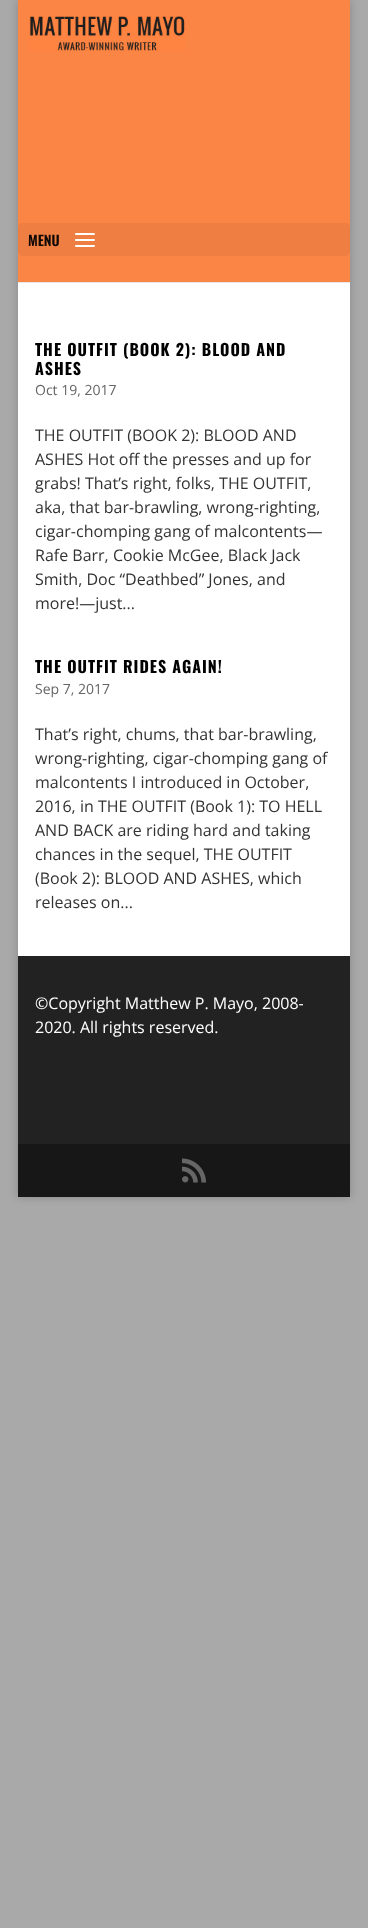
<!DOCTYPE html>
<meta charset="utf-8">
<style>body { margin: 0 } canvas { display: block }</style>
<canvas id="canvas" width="368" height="1928"></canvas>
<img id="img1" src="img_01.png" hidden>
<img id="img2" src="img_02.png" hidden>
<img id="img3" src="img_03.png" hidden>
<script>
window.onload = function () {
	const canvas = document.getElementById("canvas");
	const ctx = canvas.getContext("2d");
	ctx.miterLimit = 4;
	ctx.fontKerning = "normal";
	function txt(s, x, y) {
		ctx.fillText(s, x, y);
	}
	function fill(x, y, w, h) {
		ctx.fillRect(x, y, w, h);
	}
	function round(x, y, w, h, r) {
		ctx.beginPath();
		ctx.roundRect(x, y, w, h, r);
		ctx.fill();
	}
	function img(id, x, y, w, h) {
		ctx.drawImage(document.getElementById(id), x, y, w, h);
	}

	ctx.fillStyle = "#A9A9A9";
	fill(0, 0, 368, 1928);
	ctx.fillStyle = "rgba(0, 0, 0, 0.2)";
	ctx.filter = "blur(5px)";
	ctx.beginPath();
	ctx.rect(18, 0, 332, 1197);
	ctx.fill();
	ctx.filter = "none";
	ctx.fillStyle = "#E6E6E6";
	fill(18, 282, 332, 1);
	ctx.fillStyle = "#FB8545";
	fill(18, 0, 332, 282);
	img("img1", 29, 16, 157, 35);
	ctx.fillStyle = "#EE7E42";
	round(18, 223, 332, 33, 5);
	img("img2", 75, 233, 20, 14);
	ctx.fillStyle = "#FFFFFF";
	fill(18, 283, 332, 673);
	ctx.fillStyle = "#222222";
	fill(18, 956, 332, 188);
	ctx.fillStyle = "#171717";
	fill(18, 1144, 332, 53);
	img("img3", 182, 1158, 24, 25);
	ctx.font = "600 14px Oswald";
	ctx.fillStyle = "#110905";
	txt("MENU", 28, 246);
	ctx.letterSpacing = "1px";
	ctx.font = "bold 16px Oswald";
	ctx.fillStyle = "#000000";
	txt("THE OUTFIT (BOOK 2): BLOOD AND", 35, 356);
	txt("ASHES", 35, 375);
	ctx.letterSpacing = "0px";
	ctx.font = "14px Open Sans";
	ctx.fillStyle = "#666666";
	txt("Oct 19, 2017", 35, 395);
	ctx.font = "16px Open Sans";
	ctx.fillStyle = "#333333";
	txt("THE OUTFIT (BOOK 2): BLOOD AND", 35, 441);
	txt("ASHES Hot off the presses and up for", 35, 465);
	txt("grabs! That’s right, folks, THE OUTFIT,", 35, 489);
	txt("aka, that bar-brawling, wrong-righting,", 35, 513);
	txt("cigar-chomping gang of malcontents—", 35, 537);
	txt("Rafe Barr, Cookie McGee, Black Jack", 35, 561);
	txt("Smith, Doc “Deathbed” Jones, and", 35, 585);
	txt("more!—just...", 35, 609);
	ctx.letterSpacing = "1px";
	ctx.font = "bold 16px Oswald";
	ctx.fillStyle = "#000000";
	txt("THE OUTFIT RIDES AGAIN!", 35, 673);
	ctx.letterSpacing = "0px";
	ctx.font = "14px Open Sans";
	ctx.fillStyle = "#666666";
	txt("Sep 7, 2017", 35, 694);
	ctx.font = "16px Open Sans";
	ctx.fillStyle = "#333333";
	txt("That’s right, chums, that bar-brawling,", 35, 740);
	txt("wrong-righting, cigar-chomping gang of", 35, 764);
	txt("malcontents I introduced in October,", 35, 788);
	txt("2016, in THE OUTFIT (Book 1): TO HELL", 35, 812);
	txt("AND BACK are riding hard and taking", 35, 836);
	txt("chances in the sequel, THE OUTFIT", 35, 860);
	txt("(Book 2): BLOOD AND ASHES, which", 35, 884);
	txt("releases on...", 35, 908);
	ctx.fillStyle = "#FFFFFF";
	txt("©Copyright Matthew P. Mayo, 2008-", 35, 1009);
	txt("2020. All rights reserved.", 35, 1033);
};
</script>
